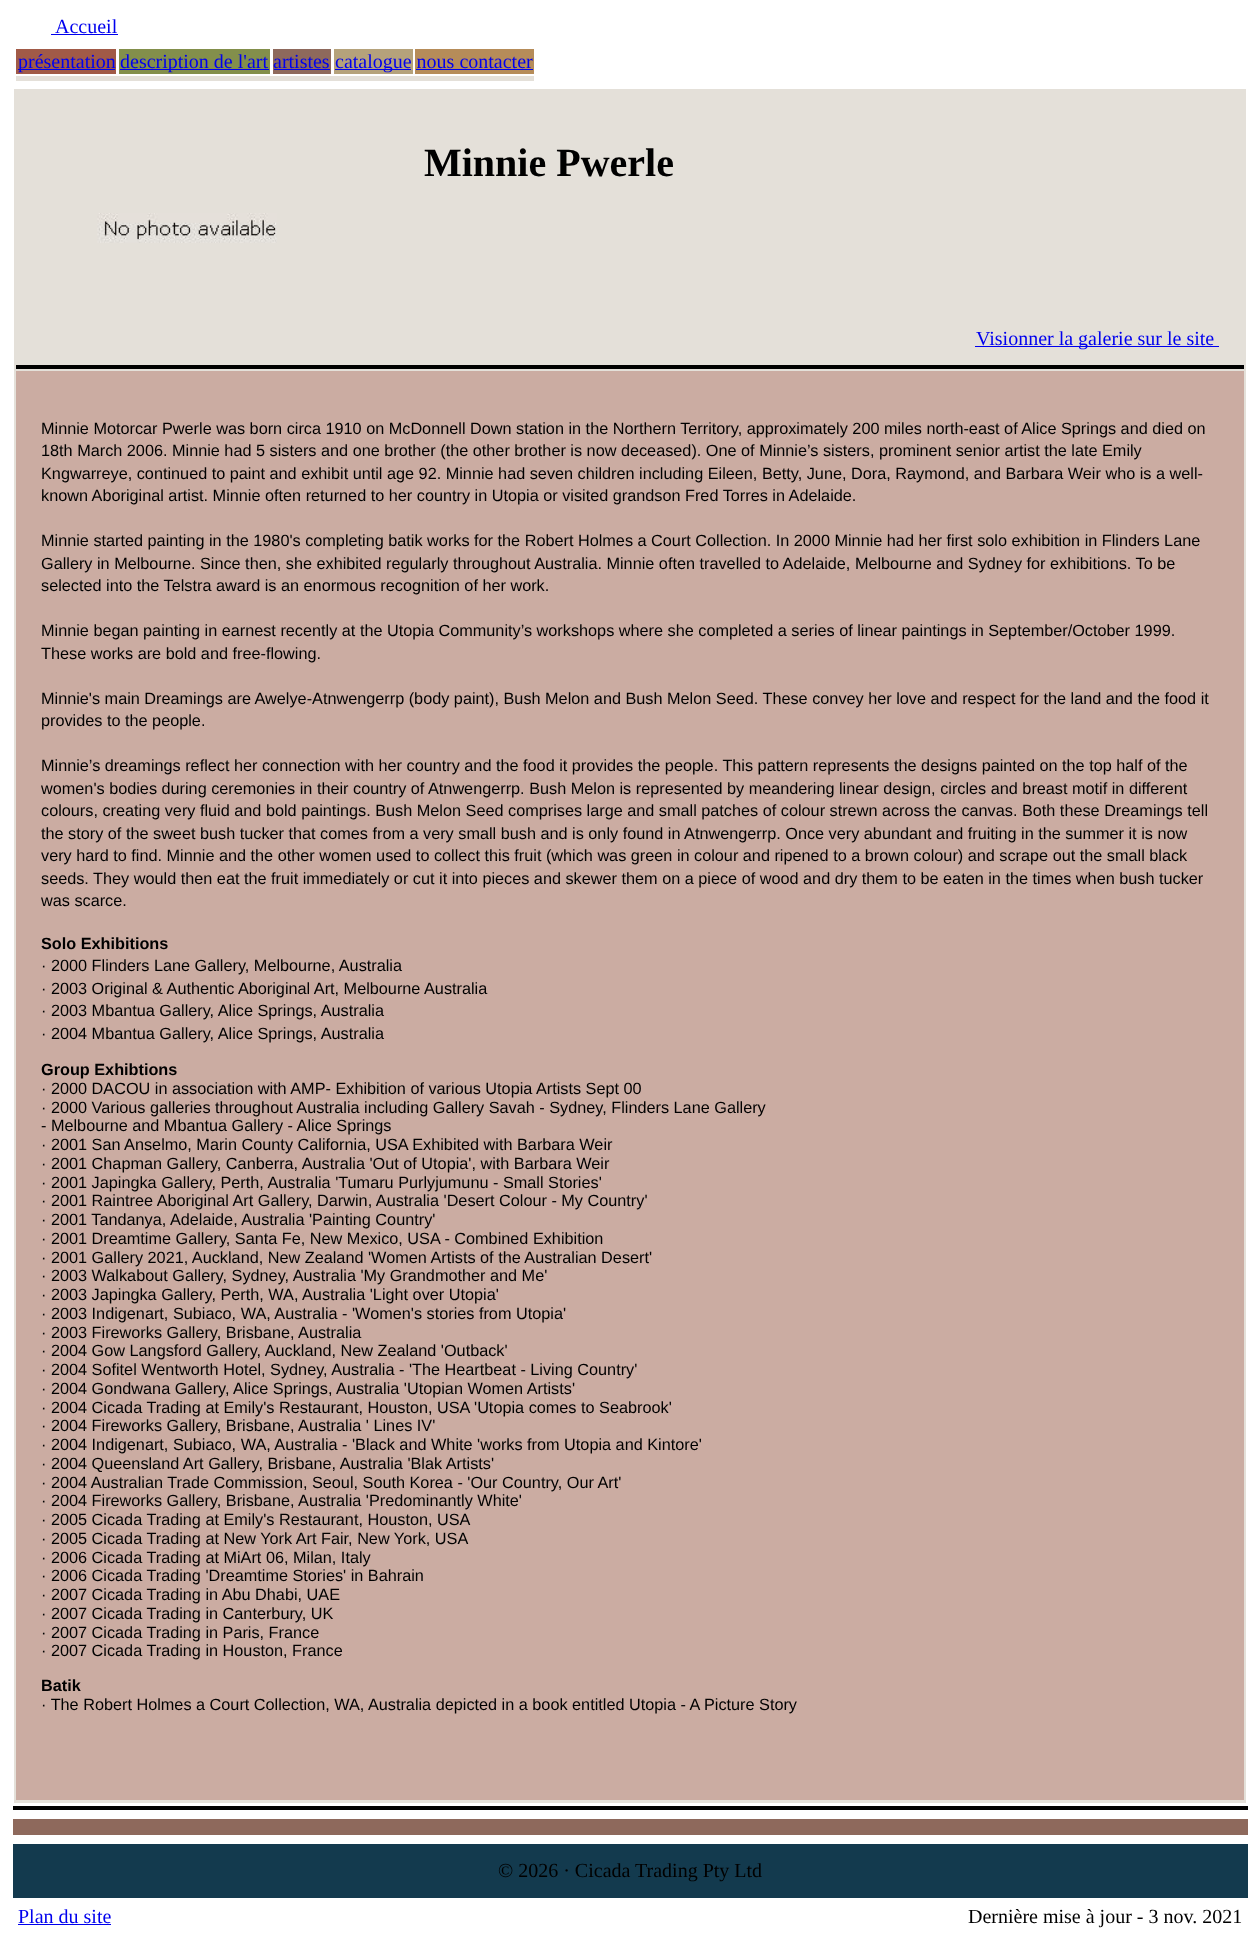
<!DOCTYPE html>
<meta charset="utf-8">
<style>body { margin: 0 } canvas { display: block }</style>
<canvas id="canvas" width="1260" height="1936"></canvas>
<img id="img1" src="img_01.png" hidden>
<script>
window.onload = function () {
	const canvas = document.getElementById("canvas");
	const ctx = canvas.getContext("2d");
	ctx.miterLimit = 4;
	ctx.fontKerning = "normal";
	function txt(s, x, y) {
		ctx.fillText(s, x, y);
	}
	function fill(x, y, w, h) {
		ctx.fillRect(x, y, w, h);
	}
	function img(id, x, y, w, h) {
		ctx.drawImage(document.getElementById(id), x, y, w, h);
	}

	ctx.fillStyle = "#FFFFFF";
	fill(0, 0, 1260, 1936);
	ctx.fillStyle = "#0000EE";
	fill(51, 34, 67, 1);
	ctx.fillStyle = "#A15A47";
	fill(16, 49, 100, 25);
	ctx.fillStyle = "#0000EE";
	fill(18, 69, 97, 1);
	ctx.fillStyle = "#8E695C";
	fill(273, 49, 58, 25);
	ctx.fillStyle = "#0000EE";
	fill(274, 69, 56, 1);
	ctx.fillStyle = "#B68C59";
	fill(415, 49, 119, 25);
	ctx.fillStyle = "#0000EE";
	fill(416, 69, 117, 1);
	ctx.fillStyle = "#838F4B";
	fill(119, 49, 151, 25);
	ctx.fillStyle = "#0000EE";
	fill(120, 69, 149, 1);
	ctx.fillStyle = "#B5A27B";
	fill(334, 49, 79, 25);
	ctx.fillStyle = "#0000EE";
	fill(335, 69, 76, 1);
	ctx.fillStyle = "#E4E0D9";
	fill(16, 76, 518, 5);
	fill(14, 89, 1232, 1714);
	img("img1", 97, 213, 180, 30);
	ctx.fillStyle = "#0000EE";
	fill(975, 346, 244, 1);
	ctx.fillStyle = "#000000";
	fill(16, 365, 1228, 4);
	ctx.fillStyle = "#CBACA2";
	fill(16, 371, 1228, 1429);
	ctx.fillStyle = "#000000";
	fill(13, 1806, 1235, 4);
	ctx.fillStyle = "#8E695C";
	fill(13, 1819, 1235, 16);
	ctx.fillStyle = "#133A4E";
	fill(13, 1844, 1235, 54);
	ctx.fillStyle = "#0000EE";
	fill(18, 1924, 93, 1);
	ctx.font = "20px Liberation Serif";
	txt("Accueil", 55, 33);
	txt("présentation", 18, 68);
	txt("description de l'art artistes", 120, 68);
	txt("catalogue nous contacter", 335, 68);
	ctx.font = "bold 40px Liberation Serif";
	ctx.fillStyle = "#000000";
	txt("Minnie Pwerle", 424, 176);
	ctx.font = "20px Liberation Serif";
	ctx.fillStyle = "#0000EE";
	txt("Visionner la galerie sur le site", 976, 345);
	ctx.font = "16.25px Liberation Sans";
	ctx.fillStyle = "#000000";
	txt("Minnie Motorcar Pwerle was born circa 1910 on McDonnell Down station in the Northern Territory, approximately 200 miles north-east of Alice Springs and died on", 41, 434);
	txt("18th March 2006. Minnie had 5 sisters and one brother (the other brother is now deceased). One of Minnie’s sisters, prominent senior artist the late Emily", 41, 456);
	txt("Kngwarreye, continued to paint and exhibit until age 92. Minnie had seven children including Eileen, Betty, June, Dora, Raymond, and Barbara Weir who is a well-", 41, 479);
	txt("known Aboriginal artist. Minnie often returned to her country in Utopia or visited grandson Fred Torres in Adelaide.", 41, 501);
	txt("Minnie started painting in the 1980's completing batik works for the Robert Holmes a Court Collection. In 2000 Minnie had her first solo exhibition in Flinders Lane", 41, 546);
	txt("Gallery in Melbourne. Since then, she exhibited regularly throughout Australia. Minnie often travelled to Adelaide, Melbourne and Sydney for exhibitions. To be", 41, 569);
	txt("selected into the Telstra award is an enormous recognition of her work.", 41, 591);
	txt("Minnie began painting in earnest recently at the Utopia Community’s workshops where she completed a series of linear paintings in September/October 1999.", 41, 636);
	txt("These works are bold and free-flowing.", 41, 659);
	txt("Minnie's main Dreamings are Awelye-Atnwengerrp (body paint), Bush Melon and Bush Melon Seed. These convey her love and respect for the land and the food it", 41, 704);
	txt("provides to the people.", 41, 726);
	txt("Minnie’s dreamings reflect her connection with her country and the food it provides the people. This pattern represents the designs painted on the top half of the", 41, 771);
	txt("women's bodies during ceremonies in their country of Atnwengerrp. Bush Melon is represented by meandering linear design, circles and breast motif in different", 41, 794);
	txt("colours, creating very fluid and bold paintings. Bush Melon Seed comprises large and small patches of colour strewn across the canvas. Both these Dreamings tell", 41, 816);
	txt("the story of the sweet bush tucker that comes from a very small bush and is only found in Atnwengerrp. Once very abundant and fruiting in the summer it is now", 41, 839);
	txt("very hard to find. Minnie and the other women used to collect this fruit (which was green in colour and ripened to a brown colour) and scrape out the small black", 41, 861);
	txt("seeds. They would then eat the fruit immediately or cut it into pieces and skewer them on a piece of wood and dry them to be eaten in the times when bush tucker", 41, 884);
	txt("was scarce.", 41, 906);
	ctx.font = "bold 16.25px Liberation Sans";
	txt("Solo Exhibitions", 41, 949);
	ctx.font = "16.25px Liberation Sans";
	txt("· 2000 Flinders Lane Gallery, Melbourne, Australia", 41, 971);
	txt("· 2003 Original & Authentic Aboriginal Art, Melbourne Australia", 41, 994);
	txt("· 2003 Mbantua Gallery, Alice Springs, Australia", 41, 1016);
	txt("· 2004 Mbantua Gallery, Alice Springs, Australia", 41, 1039);
	ctx.font = "bold 16.25px Liberation Sans";
	txt("Group Exhibtions", 41, 1075);
	ctx.font = "16.25px Liberation Sans";
	txt("· 2000 DACOU in association with AMP- Exhibition of various Utopia Artists Sept 00", 41, 1094);
	txt("· 2000 Various galleries throughout Australia including Gallery Savah - Sydney, Flinders Lane Gallery", 41, 1113);
	txt("- Melbourne and Mbantua Gallery - Alice Springs", 41, 1131);
	txt("· 2001 San Anselmo, Marin County California, USA Exhibited with Barbara Weir", 41, 1150);
	txt("· 2001 Chapman Gallery, Canberra, Australia 'Out of Utopia', with Barbara Weir", 41, 1169);
	txt("· 2001 Japingka Gallery, Perth, Australia 'Tumaru Purlyjumunu - Small Stories'", 41, 1188);
	txt("· 2001 Raintree Aboriginal Art Gallery, Darwin, Australia 'Desert Colour - My Country'", 41, 1206);
	txt("· 2001 Tandanya, Adelaide, Australia 'Painting Country'", 41, 1225);
	txt("· 2001 Dreamtime Gallery, Santa Fe, New Mexico, USA - Combined Exhibition", 41, 1244);
	txt("· 2001 Gallery 2021, Auckland, New Zealand 'Women Artists of the Australian Desert'", 41, 1263);
	txt("· 2003 Walkabout Gallery, Sydney, Australia 'My Grandmother and Me'", 41, 1281);
	txt("· 2003 Japingka Gallery, Perth, WA, Australia 'Light over Utopia'", 41, 1300);
	txt("· 2003 Indigenart, Subiaco, WA, Australia - 'Women's stories from Utopia'", 41, 1319);
	txt("· 2003 Fireworks Gallery, Brisbane, Australia", 41, 1338);
	txt("· 2004 Gow Langsford Gallery, Auckland, New Zealand 'Outback'", 41, 1356);
	txt("· 2004 Sofitel Wentworth Hotel, Sydney, Australia - 'The Heartbeat - Living Country'", 41, 1375);
	txt("· 2004 Gondwana Gallery, Alice Springs, Australia 'Utopian Women Artists'", 41, 1394);
	txt("· 2004 Cicada Trading at Emily's Restaurant, Houston, USA 'Utopia comes to Seabrook'", 41, 1413);
	txt("· 2004 Fireworks Gallery, Brisbane, Australia ' Lines IV'", 41, 1431);
	txt("· 2004 Indigenart, Subiaco, WA, Australia - 'Black and White 'works from Utopia and Kintore'", 41, 1450);
	txt("· 2004 Queensland Art Gallery, Brisbane, Australia 'Blak Artists'", 41, 1469);
	txt("· 2004 Australian Trade Commission, Seoul, South Korea - 'Our Country, Our Art'", 41, 1488);
	txt("· 2004 Fireworks Gallery, Brisbane, Australia 'Predominantly White'", 41, 1506);
	txt("· 2005 Cicada Trading at Emily's Restaurant, Houston, USA", 41, 1525);
	txt("· 2005 Cicada Trading at New York Art Fair, New York, USA", 41, 1544);
	txt("· 2006 Cicada Trading at MiArt 06, Milan, Italy", 41, 1563);
	txt("· 2006 Cicada Trading 'Dreamtime Stories' in Bahrain", 41, 1581);
	txt("· 2007 Cicada Trading in Abu Dhabi, UAE", 41, 1600);
	txt("· 2007 Cicada Trading in Canterbury, UK", 41, 1619);
	txt("· 2007 Cicada Trading in Paris, France", 41, 1638);
	txt("· 2007 Cicada Trading in Houston, France", 41, 1656);
	ctx.font = "bold 16.25px Liberation Sans";
	txt("Batik", 41, 1691);
	ctx.font = "16.25px Liberation Sans";
	txt("· The Robert Holmes a Court Collection, WA, Australia depicted in a book entitled Utopia - A Picture Story", 41, 1710);
	ctx.font = "20px Liberation Serif";
	txt("© 2026 · Cicada Trading Pty Ltd", 498, 1877);
	ctx.fillStyle = "#0000EE";
	txt("Plan du site", 18, 1923);
	ctx.fillStyle = "#000000";
	txt("Dernière mise à jour - 3 nov. 2021", 968, 1923);
};
</script>
